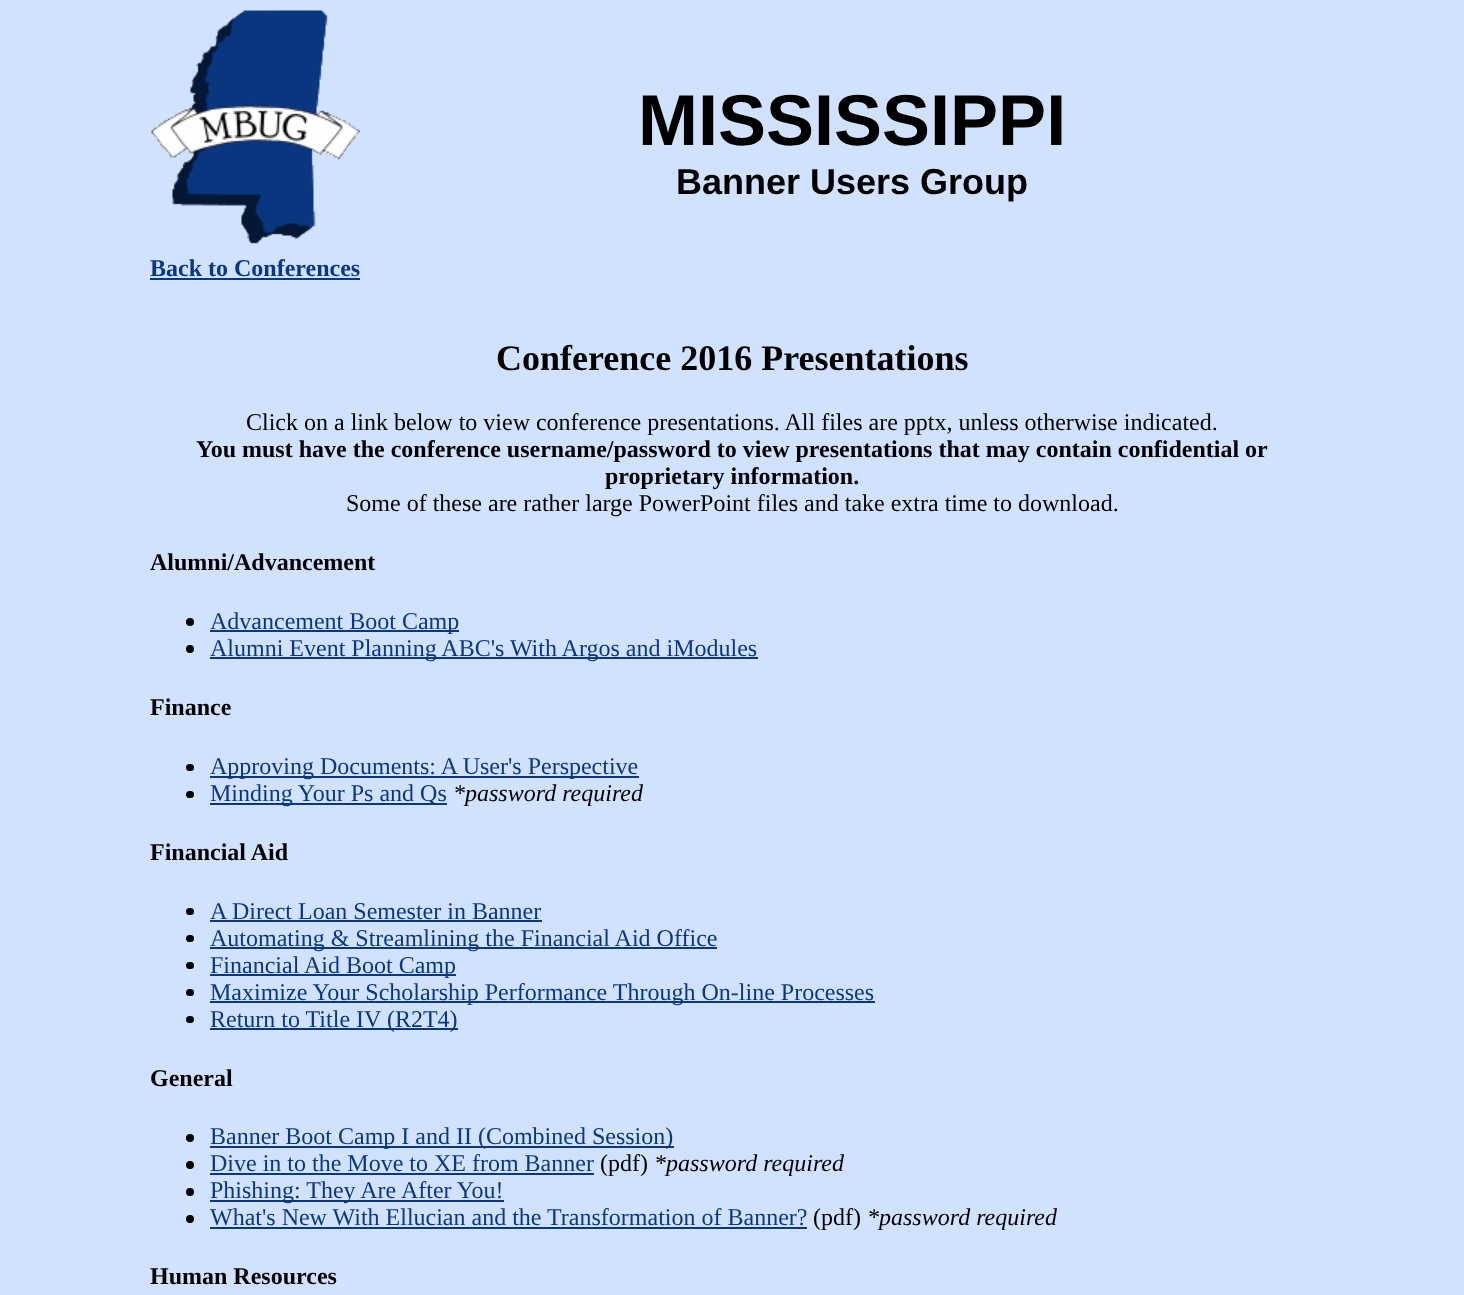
<!DOCTYPE html>
<meta charset="utf-8">
<style>body { margin: 0 } canvas { display: block }</style>
<canvas id="canvas" width="1464" height="1295"></canvas>
<img id="img1" src="img_01.png" hidden>
<script>
window.onload = function () {
	const canvas = document.getElementById("canvas");
	const ctx = canvas.getContext("2d");
	ctx.miterLimit = 4;
	ctx.fontKerning = "normal";
	function txt(s, x, y) {
		ctx.fillText(s, x, y);
	}
	function fill(x, y, w, h) {
		ctx.fillRect(x, y, w, h);
	}
	function round(x, y, w, h, r) {
		ctx.beginPath();
		ctx.roundRect(x, y, w, h, r);
		ctx.fill();
	}
	function img(id, x, y, w, h) {
		ctx.drawImage(document.getElementById(id), x, y, w, h);
	}

	ctx.fillStyle = "#D1E2FF";
	fill(0, 0, 1464, 1295);
	img("img1", 151, 10, 209, 234);
	ctx.fillStyle = "#0B3780";
	fill(150, 278, 210, 2);
	ctx.fillStyle = "#000000";
	ctx.beginPath();
	ctx.arc(190, 622, 4, 0, Math.PI * 2);
	ctx.fill();
	ctx.fillStyle = "#0B3780";
	fill(210, 630, 249, 2);
	ctx.fillStyle = "#000000";
	ctx.beginPath();
	ctx.arc(190, 649, 4, 0, Math.PI * 2);
	ctx.fill();
	ctx.fillStyle = "#0B3780";
	fill(210, 657, 548, 2);
	ctx.fillStyle = "#000000";
	round(186, 764, 8, 7, 3.5);
	ctx.fillStyle = "#0B3780";
	fill(210, 776, 429, 2);
	ctx.fillStyle = "#000000";
	round(186, 791, 8, 7, 3.5);
	ctx.fillStyle = "#0B3780";
	fill(210, 803, 237, 2);
	ctx.fillStyle = "#000000";
	round(186, 908, 8, 7, 3.5);
	ctx.fillStyle = "#0B3780";
	fill(210, 920, 332, 2);
	ctx.fillStyle = "#000000";
	round(186, 935, 8, 7, 3.5);
	ctx.fillStyle = "#0B3780";
	fill(210, 947, 507, 2);
	ctx.fillStyle = "#000000";
	round(186, 962, 8, 7, 3.5);
	ctx.fillStyle = "#0B3780";
	fill(210, 974, 246, 2);
	ctx.fillStyle = "#000000";
	round(186, 989, 8, 7, 3.5);
	ctx.fillStyle = "#0B3780";
	fill(210, 1001, 665, 2);
	ctx.fillStyle = "#000000";
	round(186, 1016, 8, 7, 3.5);
	ctx.fillStyle = "#0B3780";
	fill(210, 1028, 248, 2);
	ctx.fillStyle = "#000000";
	ctx.beginPath();
	ctx.arc(190, 1138, 4, 0, Math.PI * 2);
	ctx.fill();
	ctx.fillStyle = "#0B3780";
	fill(210, 1146, 464, 2);
	ctx.fillStyle = "#000000";
	ctx.beginPath();
	ctx.arc(190, 1165, 4, 0, Math.PI * 2);
	ctx.fill();
	ctx.fillStyle = "#0B3780";
	fill(210, 1173, 384, 2);
	ctx.fillStyle = "#000000";
	ctx.beginPath();
	ctx.arc(190, 1192, 4, 0, Math.PI * 2);
	ctx.fill();
	ctx.fillStyle = "#0B3780";
	fill(210, 1200, 294, 2);
	ctx.fillStyle = "#000000";
	ctx.beginPath();
	ctx.arc(190, 1219, 4, 0, Math.PI * 2);
	ctx.fill();
	ctx.fillStyle = "#0B3780";
	fill(210, 1227, 597, 2);
	ctx.font = "bold 72px Liberation Sans";
	ctx.fillStyle = "#000000";
	txt("MISSISSIPPI", 638, 145);
	ctx.font = "bold 36px Liberation Sans";
	txt("Banner Users Group", 676, 194);
	ctx.font = "bold 24px Liberation Serif";
	ctx.fillStyle = "#0B3780";
	txt("Back to Conferences", 150, 276);
	ctx.font = "bold 36px Liberation Serif";
	ctx.fillStyle = "#000000";
	txt("Conference 2016 Presentations", 496, 370);
	ctx.font = "24px Liberation Serif";
	txt("Click on a link below to view conference presentations. All files are pptx, unless otherwise indicated.", 246, 430);
	ctx.font = "bold 24px Liberation Serif";
	txt("You must have the conference username/password to view presentations that may contain confidential or", 196, 457);
	txt("proprietary information.", 605, 484);
	ctx.font = "24px Liberation Serif";
	txt("Some of these are rather large PowerPoint files and take extra time to download.", 346, 511);
	ctx.font = "bold 24px Liberation Serif";
	txt("Alumni/Advancement", 150, 570);
	ctx.font = "24px Liberation Serif";
	ctx.fillStyle = "#0B3780";
	txt("Advancement Boot Camp", 210, 629);
	txt("Alumni Event Planning ABC's With Argos and iModules", 210, 656);
	ctx.font = "bold 24px Liberation Serif";
	ctx.fillStyle = "#000000";
	txt("Finance", 150, 715);
	ctx.font = "24px Liberation Serif";
	ctx.fillStyle = "#0B3780";
	txt("Approving Documents: A User's Perspective", 210, 774);
	txt("Minding Your Ps and Qs", 210, 801);
	ctx.font = "italic 24px Liberation Serif";
	ctx.fillStyle = "#000000";
	txt("*password required", 453, 801);
	ctx.font = "bold 24px Liberation Serif";
	txt("Financial Aid", 150, 860);
	ctx.font = "24px Liberation Serif";
	ctx.fillStyle = "#0B3780";
	txt("A Direct Loan Semester in Banner", 210, 919);
	txt("Automating & Streamlining the Financial Aid Office", 210, 946);
	txt("Financial Aid Boot Camp", 210, 973);
	txt("Maximize Your Scholarship Performance Through On-line Processes", 210, 1000);
	txt("Return to Title IV (R2T4)", 210, 1027);
	ctx.font = "bold 24px Liberation Serif";
	ctx.fillStyle = "#000000";
	txt("General", 150, 1086);
	ctx.font = "24px Liberation Serif";
	ctx.fillStyle = "#0B3780";
	txt("Banner Boot Camp I and II (Combined Session)", 210, 1144);
	txt("Dive in to the Move to XE from Banner", 210, 1171);
	ctx.fillStyle = "#000000";
	txt("(pdf)", 600, 1171);
	ctx.font = "italic 24px Liberation Serif";
	txt("*password required", 654, 1171);
	ctx.font = "24px Liberation Serif";
	ctx.fillStyle = "#0B3780";
	txt("Phishing: They Are After You!", 210, 1198);
	txt("What's New With Ellucian and the Transformation of Banner?", 210, 1225);
	ctx.fillStyle = "#000000";
	txt("(pdf)", 813, 1225);
	ctx.font = "italic 24px Liberation Serif";
	txt("*password required", 867, 1225);
	ctx.font = "bold 24px Liberation Serif";
	txt("Human Resources", 150, 1284);
};
</script>
